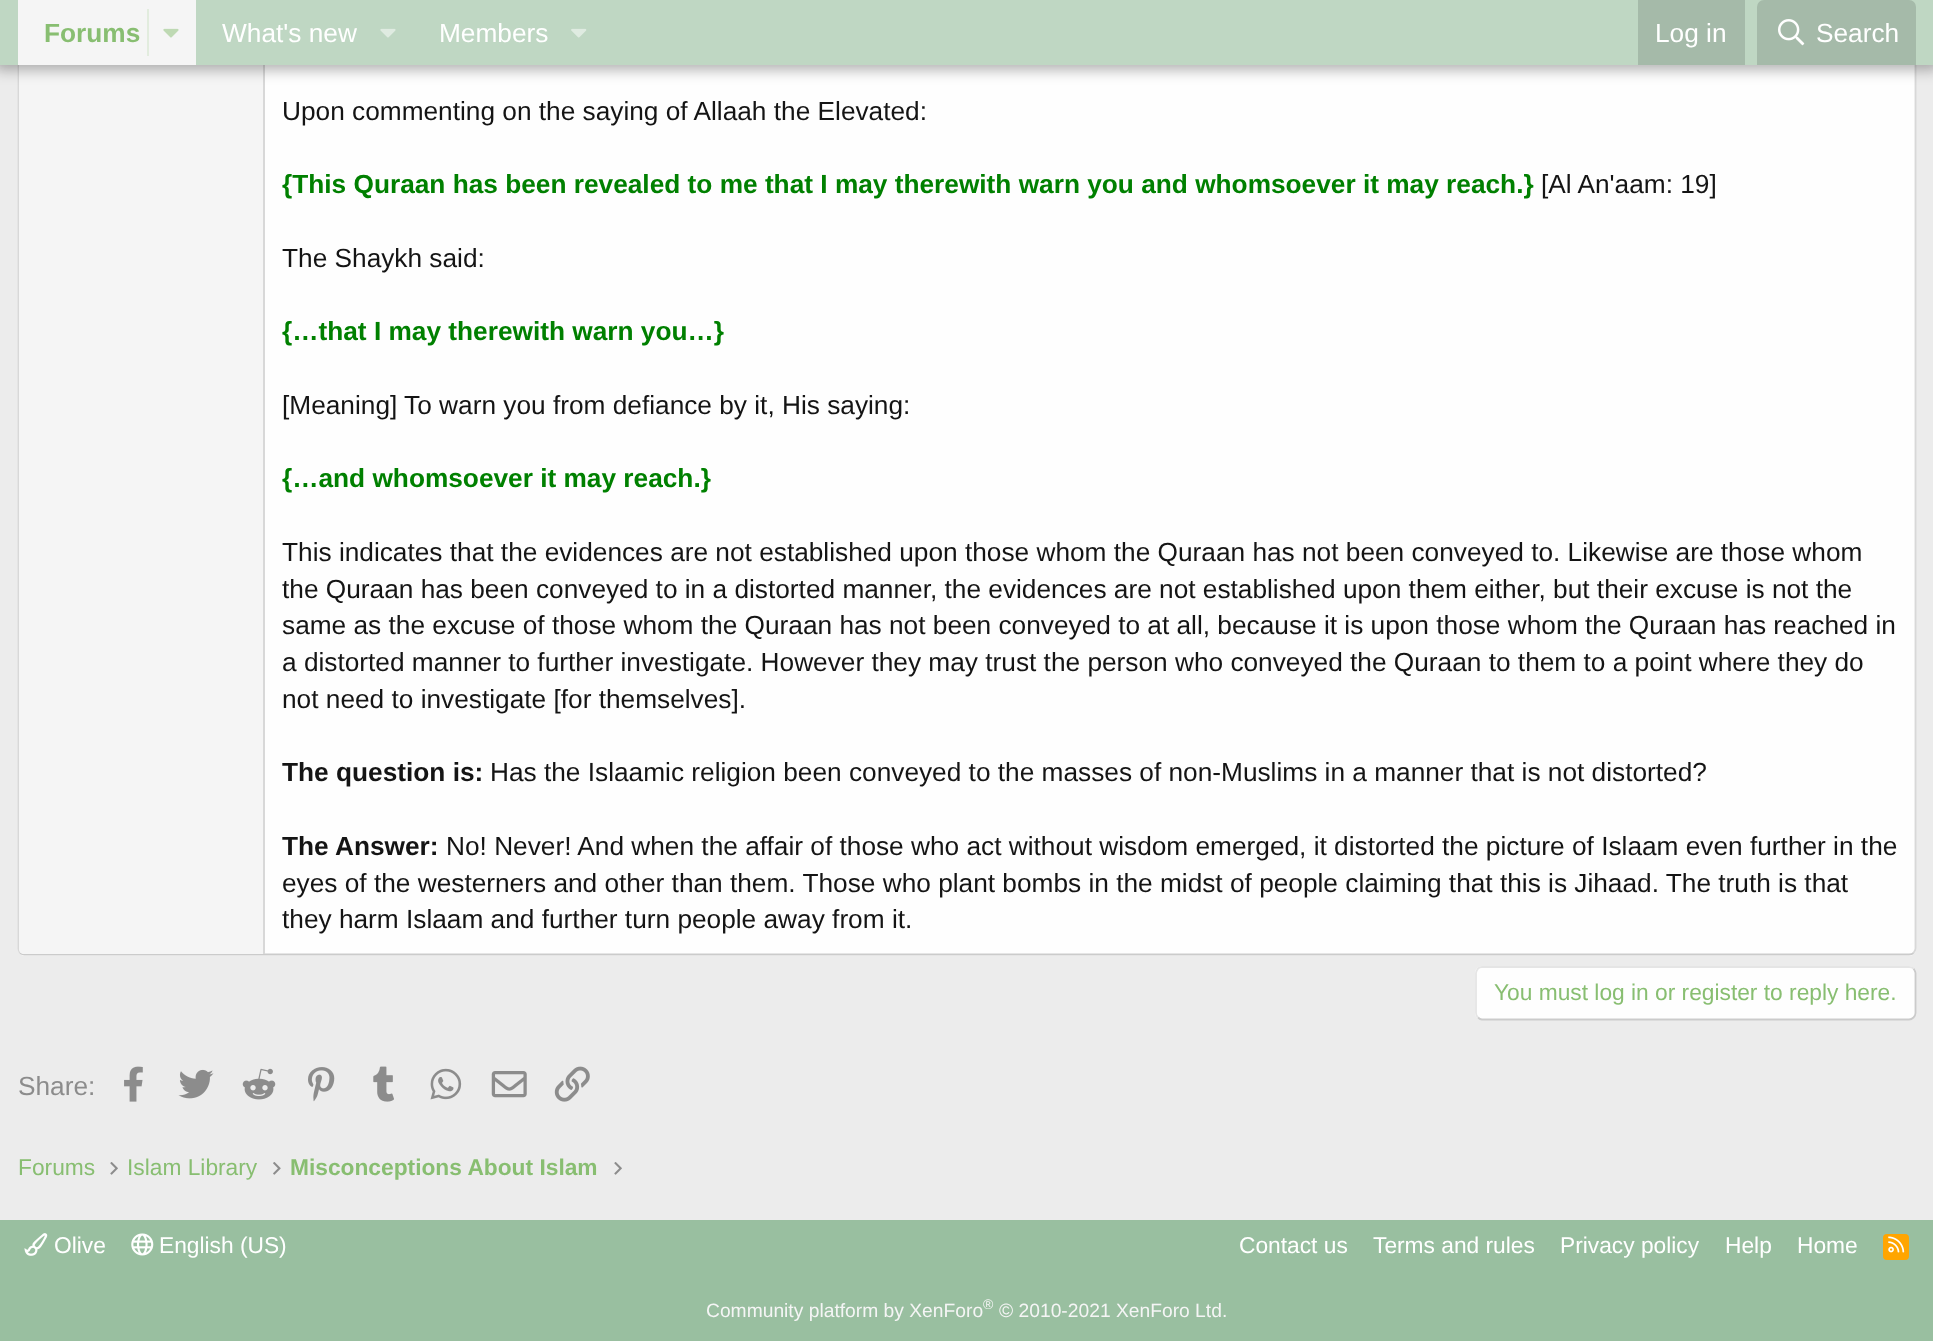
<!DOCTYPE html>
<meta charset="utf-8">
<style>body { margin: 0 } canvas { display: block }</style>
<canvas id="canvas" width="1933" height="1341"></canvas>
<img id="img1" src="img_01.png" hidden>
<img id="img2" src="img_02.png" hidden>
<img id="img3" src="img_03.png" hidden>
<img id="img4" src="img_04.png" hidden>
<img id="img5" src="img_05.png" hidden>
<img id="img6" src="img_06.png" hidden>
<img id="img7" src="img_07.png" hidden>
<img id="img8" src="img_08.png" hidden>
<img id="img9" src="img_09.png" hidden>
<img id="img10" src="img_10.png" hidden>
<img id="img11" src="img_11.png" hidden>
<img id="img12" src="img_12.png" hidden>
<img id="img13" src="img_13.png" hidden>
<img id="img14" src="img_14.png" hidden>
<img id="img15" src="img_15.png" hidden>
<img id="img16" src="img_16.png" hidden>
<img id="img17" src="img_17.png" hidden>
<script>
window.onload = function () {
	const canvas = document.getElementById("canvas");
	const ctx = canvas.getContext("2d");
	ctx.miterLimit = 4;
	ctx.fontKerning = "normal";
	function txt(s, x, y) {
		ctx.fillText(s, x, y);
	}
	function fill(x, y, w, h) {
		ctx.fillRect(x, y, w, h);
	}
	function round(x, y, w, h, r) {
		ctx.beginPath();
		ctx.roundRect(x, y, w, h, r);
		ctx.fill();
	}
	function img(id, x, y, w, h) {
		ctx.drawImage(document.getElementById(id), x, y, w, h);
	}

	ctx.fillStyle = "#ECECEC";
	fill(0, 0, 1933, 1341);
	ctx.fillStyle = "#FEFEFE";
	round(18, -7, 1898, 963, 7);
	ctx.beginPath();
	ctx.moveTo(1913.5, -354.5);
	ctx.bezierCurveTo(1914.5, -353, 1915.5, -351.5, 1915.5, -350);
	ctx.lineTo(1915.5, 948.5);
	ctx.bezierCurveTo(1915.5, 950, 1914.5, 951.5, 1913.5, 953);
	ctx.strokeStyle = "#D8D8D8";
	ctx.lineWidth = 1.8;
	ctx.stroke();
	ctx.beginPath();
	ctx.moveTo(1913.5, 953);
	ctx.bezierCurveTo(1912.5, 954, 1911, 954.5, 1909, 954.5);
	ctx.lineTo(24.5, 954.5);
	ctx.bezierCurveTo(23, 954.5, 21.5, 954, 20, 953);
	ctx.strokeStyle = "#CBCBCB";
	ctx.stroke();
	ctx.beginPath();
	ctx.moveTo(20, 953);
	ctx.bezierCurveTo(19, 951.5, 18.5, 950, 18.5, 948.5);
	ctx.lineTo(18.5, -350);
	ctx.bezierCurveTo(18.5, -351.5, 19, -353, 20, -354.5);
	ctx.strokeStyle = "#D8D8D8";
	ctx.stroke();
	ctx.fillStyle = "#F5F5F5";
	ctx.beginPath();
	ctx.moveTo(24, -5);
	ctx.lineTo(264, -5);
	ctx.lineTo(264, 954);
	ctx.lineTo(24, 954);
	ctx.bezierCurveTo(21, 954, 19, 952, 19, 949);
	ctx.lineTo(19, 0);
	ctx.bezierCurveTo(19, -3, 21, -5, 24, -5);
	ctx.closePath();
	ctx.fill();
	ctx.fillStyle = "#D8D8D8";
	fill(263, 65, 2, 889);
	ctx.fillStyle = "rgba(0, 0, 0, 0.3)";
	ctx.filter = "blur(7px)";
	ctx.beginPath();
	ctx.rect(-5, -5, 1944, 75);
	ctx.fill();
	ctx.filter = "none";
	ctx.fillStyle = "#BFD7C3";
	fill(0, 0, 1933, 65);
	ctx.fillStyle = "#F5F5F5";
	fill(18, 0, 178, 65);
	ctx.fillStyle = "#E2ECDE";
	fill(147, 9, 2, 47);
	img("img1", 163, 28, 16, 10);
	img("img2", 380, 28, 16, 10);
	img("img3", 571, 28, 16, 10);
	ctx.fillStyle = "#A5BAA9";
	fill(1638, 0, 107, 65);
	ctx.beginPath();
	ctx.roundRect(1757, 0, 159, 65, [7, 7, 0, 0]);
	ctx.fill();
	img("img4", 1778, 19, 27, 27);
	ctx.fillStyle = "#FEFEFE";
	round(1475, 966, 441, 54, 7);
	ctx.beginPath();
	ctx.moveTo(1913.5, 968.5);
	ctx.bezierCurveTo(1914.5, 970, 1915.5, 971.5, 1915.5, 973);
	ctx.lineTo(1915.5, 1013);
	ctx.bezierCurveTo(1915.5, 1015, 1914.5, 1016.5, 1913.5, 1017.5);
	ctx.bezierCurveTo(1912.5, 1018.5, 1911, 1019.5, 1909, 1019.5);
	ctx.lineTo(1482, 1019.5);
	ctx.bezierCurveTo(1480.5, 1019.5, 1479, 1018.5, 1478, 1017.5);
	ctx.strokeStyle = "#CBCBCB";
	ctx.stroke();
	ctx.beginPath();
	ctx.moveTo(1478, 1017.5);
	ctx.bezierCurveTo(1477, 1016.5, 1476, 1015, 1476, 1013);
	ctx.lineTo(1476, 973);
	ctx.bezierCurveTo(1476, 971.5, 1477, 970, 1478, 968.5);
	ctx.bezierCurveTo(1479, 967.5, 1480.5, 967, 1482, 967);
	ctx.lineTo(1909, 967);
	ctx.bezierCurveTo(1911, 967, 1912.5, 967.5, 1913.5, 968.5);
	ctx.strokeStyle = "#E5E5E5";
	ctx.stroke();
	img("img5", 124, 1066, 19, 36);
	img("img6", 178, 1069, 36, 30);
	img("img7", 242, 1068, 34, 32);
	img("img8", 308, 1067, 27, 35);
	img("img9", 373, 1066, 21, 36);
	img("img10", 430, 1068, 32, 32);
	img("img11", 491, 1071, 36, 27);
	img("img12", 554, 1066, 36, 36);
	img("img13", 110, 1162, 8, 13);
	img("img14", 273, 1162, 8, 13);
	img("img13", 614, 1162, 8, 13);
	ctx.fillStyle = "#99BFA0";
	fill(0, 1220, 1933, 121);
	img("img15", 24, 1233, 24, 23);
	img("img16", 131, 1233, 23, 23);
	ctx.fillStyle = "#FFA500";
	round(1883, 1234, 26, 26, 4);
	img("img17", 1888, 1236, 17, 17);
	ctx.font = "bold 26.25px Liberation Sans";
	ctx.fillStyle = "#88BE71";
	txt("Forums", 44, 42);
	ctx.font = "26.25px Liberation Sans";
	ctx.fillStyle = "#FFFFFF";
	txt("What's new", 222, 42);
	txt("Members", 439, 42);
	txt("Log in", 1655, 42);
	txt("Search", 1816, 42);
	ctx.fillStyle = "#141414";
	txt("Upon commenting on the saying of Allaah the Elevated:", 282, 120);
	ctx.font = "bold 26.25px Liberation Sans";
	ctx.fillStyle = "#008000";
	txt("{This Quraan has been revealed to me that I may therewith warn you and whomsoever it may reach.}", 282, 193);
	ctx.font = "26.25px Liberation Sans";
	ctx.fillStyle = "#141414";
	txt("[Al An'aam: 19]", 1541, 193);
	txt("The Shaykh said:", 282, 267);
	ctx.font = "bold 26.25px Liberation Sans";
	ctx.fillStyle = "#008000";
	txt("{…that I may therewith warn you…}", 282, 340);
	ctx.font = "26.25px Liberation Sans";
	ctx.fillStyle = "#141414";
	txt("[Meaning] To warn you from defiance by it, His saying:", 282, 414);
	ctx.font = "bold 26.25px Liberation Sans";
	ctx.fillStyle = "#008000";
	txt("{…and whomsoever it may reach.}", 282, 487);
	ctx.font = "26.25px Liberation Sans";
	ctx.fillStyle = "#141414";
	txt("This indicates that the evidences are not established upon those whom the Quraan has not been conveyed to. Likewise are those whom", 282, 561);
	txt("the Quraan has been conveyed to in a distorted manner, the evidences are not established upon them either, but their excuse is not the", 282, 598);
	txt("same as the excuse of those whom the Quraan has not been conveyed to at all, because it is upon those whom the Quraan has reached in", 282, 634);
	txt("a distorted manner to further investigate. However they may trust the person who conveyed the Quraan to them to a point where they do", 282, 671);
	txt("not need to investigate [for themselves].", 282, 708);
	ctx.font = "bold 26.25px Liberation Sans";
	txt("The question is:", 282, 781);
	ctx.font = "26.25px Liberation Sans";
	txt("Has the Islaamic religion been conveyed to the masses of non-Muslims in a manner that is not distorted?", 490, 781);
	ctx.font = "bold 26.25px Liberation Sans";
	txt("The Answer:", 282, 855);
	ctx.font = "26.25px Liberation Sans";
	txt("No! Never! And when the affair of those who act without wisdom emerged, it distorted the picture of Islaam even further in the", 446, 855);
	txt("eyes of the westerners and other than them. Those who plant bombs in the midst of people claiming that this is Jihaad. The truth is that", 282, 892);
	txt("they harm Islaam and further turn people away from it.", 282, 928);
	ctx.font = "22.75px Liberation Sans";
	ctx.fillStyle = "#88BE71";
	txt("You must log in or register to reply here.", 1494, 1000);
	ctx.font = "26.25px Liberation Sans";
	ctx.fillStyle = "#8C8C8C";
	txt("Share:", 18, 1095);
	ctx.font = "22.75px Liberation Sans";
	ctx.fillStyle = "#88BE71";
	txt("Forums", 18, 1175);
	txt("Islam Library", 127, 1175);
	ctx.font = "bold 22.75px Liberation Sans";
	txt("Misconceptions About Islam", 290, 1175);
	ctx.font = "22.75px Liberation Sans";
	ctx.fillStyle = "#FFFFFF";
	txt("Olive", 54, 1253);
	txt("English (US)", 159, 1253);
	txt("Contact us", 1239, 1253);
	txt("Terms and rules", 1373, 1253);
	txt("Privacy policy", 1560, 1253);
	txt("Help", 1725, 1253);
	txt("Home", 1797, 1253);
	ctx.font = "19.25px Liberation Sans";
	ctx.fillStyle = "#F5F5F5";
	txt("Community platform by XenForo", 706, 1317);
	ctx.font = "14px Liberation Sans";
	txt("®", 983, 1309);
	ctx.font = "19.25px Liberation Sans";
	txt("© 2010-2021 XenForo Ltd.", 999, 1317);
};
</script>
